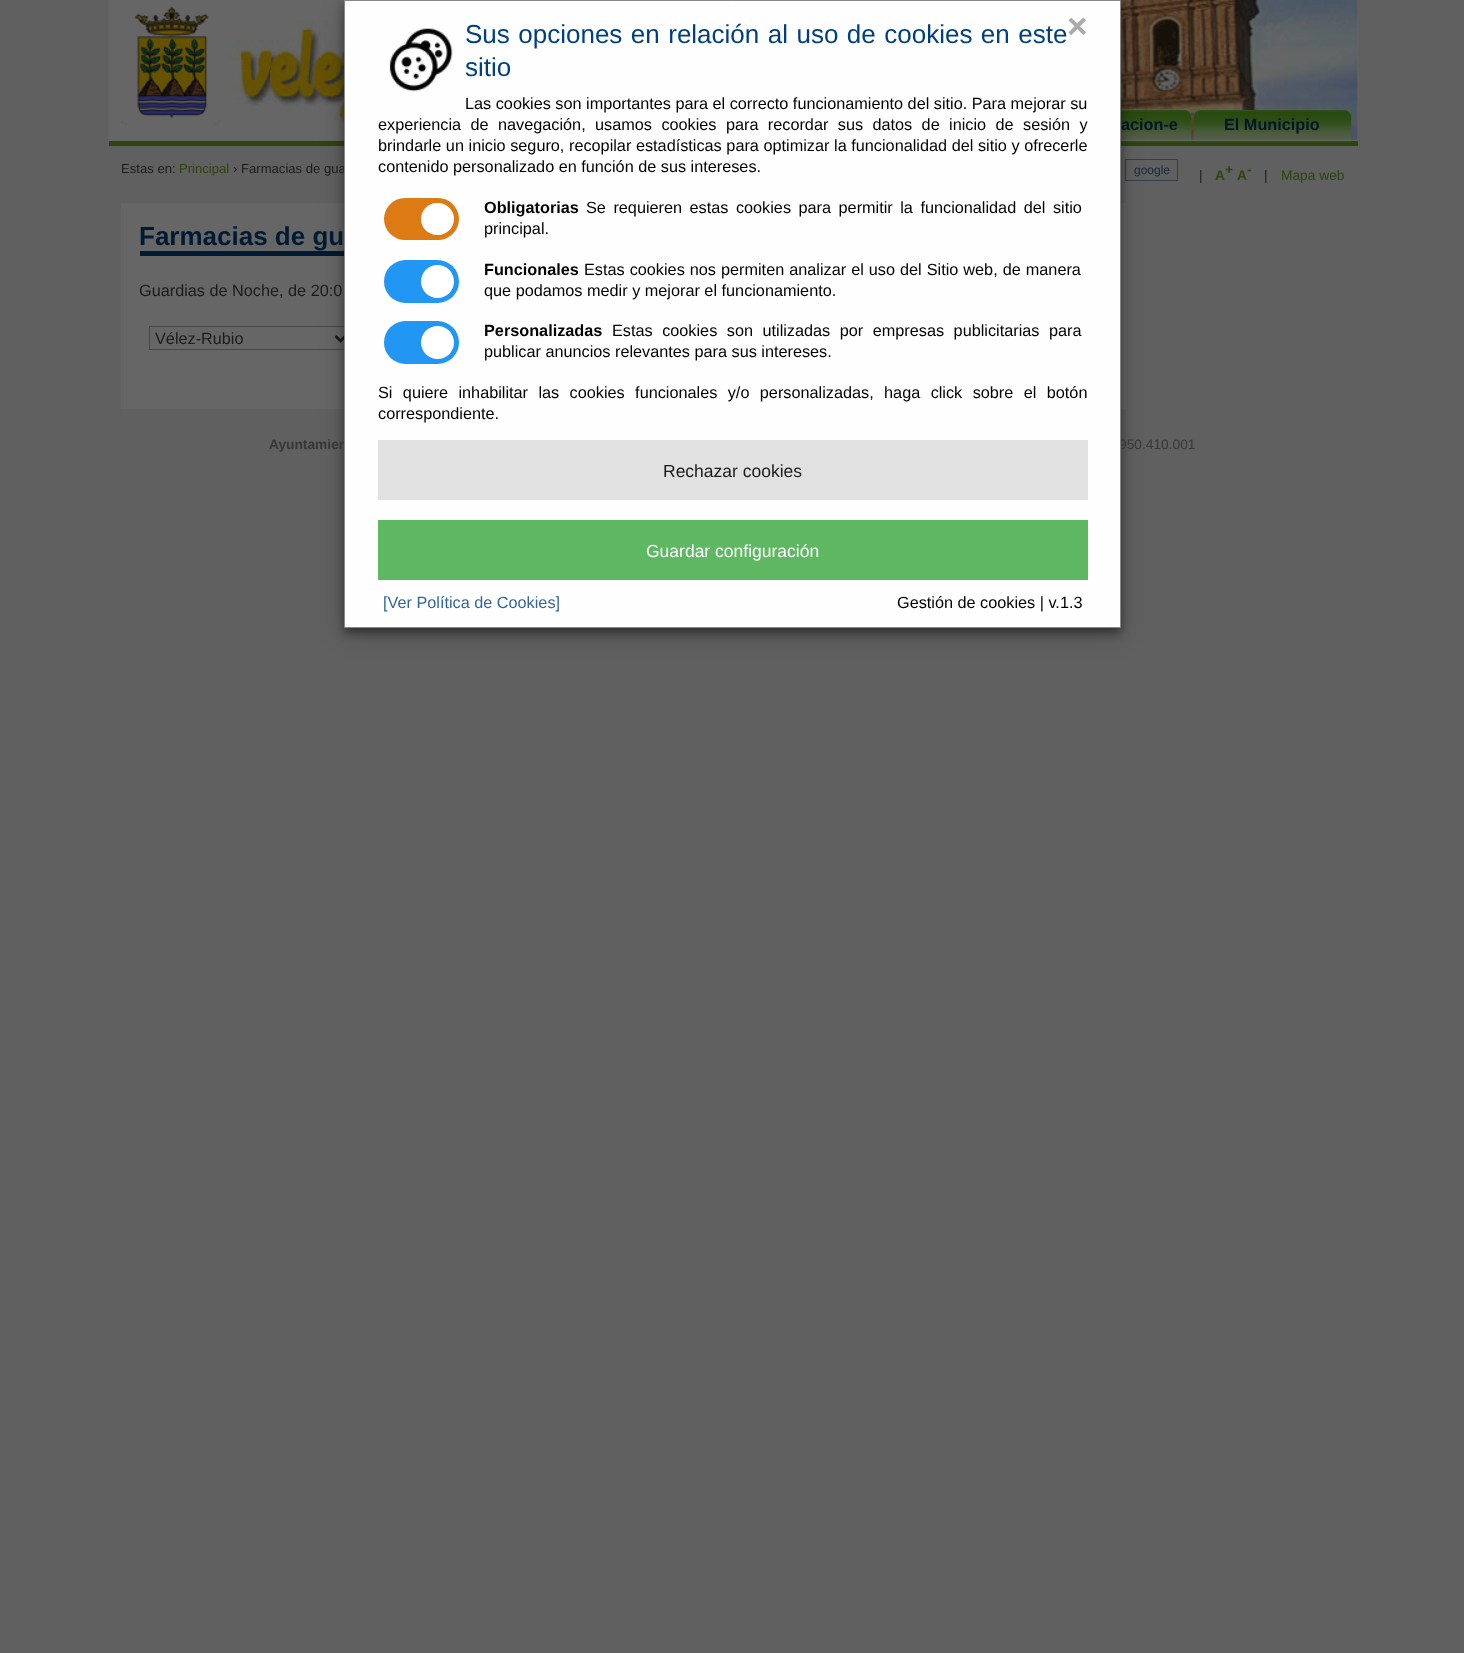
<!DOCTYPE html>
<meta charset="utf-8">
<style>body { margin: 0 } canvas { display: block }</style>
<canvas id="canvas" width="1464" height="1653"></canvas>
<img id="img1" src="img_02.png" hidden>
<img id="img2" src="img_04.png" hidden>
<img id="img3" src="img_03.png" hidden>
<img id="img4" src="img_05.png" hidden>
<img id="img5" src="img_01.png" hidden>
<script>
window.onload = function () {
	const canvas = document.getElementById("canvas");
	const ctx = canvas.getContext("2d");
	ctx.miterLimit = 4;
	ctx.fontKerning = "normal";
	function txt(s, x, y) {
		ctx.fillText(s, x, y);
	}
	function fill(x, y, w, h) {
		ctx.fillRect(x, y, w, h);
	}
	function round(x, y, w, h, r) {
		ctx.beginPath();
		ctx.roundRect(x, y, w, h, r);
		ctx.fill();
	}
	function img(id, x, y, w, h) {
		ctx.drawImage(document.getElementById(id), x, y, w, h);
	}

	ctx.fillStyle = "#606060";
	fill(0, 0, 1464, 1653);
	ctx.fillStyle = "#666666";
	fill(109, 0, 1249, 141);
	img("img1", 108, 0, 1250, 140);
	ctx.fillStyle = "#2C450E";
	fill(109, 141, 1249, 5);
	img("img2", 1121, 110, 71, 32);
	ctx.strokeStyle = "#333F4A";
	ctx.strokeRect(1125.5, 159.5, 52, 21);
	ctx.fillStyle = "#666666";
	fill(121, 203, 1005, 206);
	ctx.fillStyle = "#001A33";
	fill(140, 251, 204, 5);
	ctx.strokeStyle = "#484848";
	ctx.strokeRect(149.5, 326.5, 201, 23);
	ctx.beginPath();
	ctx.moveTo(335.5, 336);
	ctx.lineTo(340.5, 341);
	ctx.lineTo(345.5, 336);
	ctx.strokeStyle = "#1B1B1B";
	ctx.lineWidth = 2.5;
	ctx.stroke();
	ctx.fillStyle = "rgba(0, 0, 0, 0.19)";
	ctx.filter = "blur(12.5px)";
	ctx.beginPath();
	ctx.rect(344, 8, 777, 627);
	ctx.fill();
	ctx.filter = "none";
	ctx.fillStyle = "rgba(0, 0, 0, 0.4)";
	ctx.filter = "blur(5px)";
	ctx.beginPath();
	ctx.rect(344, 5, 777, 628);
	ctx.fill();
	ctx.filter = "none";
	img("img3", 121, 6, 99, 119);
	img("img4", 1193, 110, 159, 32);
	ctx.font = "bold 16.25px Liberation Sans";
	ctx.fillStyle = "#001526";
	txt("acion-e", 1121, 130);
	txt("El Municipio", 1224, 130);
	ctx.font = "13.1px Liberation Sans";
	ctx.fillStyle = "#1B1B1B";
	txt("Estas en:", 121, 173);
	ctx.fillStyle = "#2C450E";
	txt("Principal", 179, 173);
	ctx.fillStyle = "#1B1B1B";
	txt("› Farmacias de gua", 233, 173);
	ctx.font = "12px Liberation Sans";
	ctx.fillStyle = "#14293D";
	txt("google", 1134, 174);
	ctx.font = "13.75px Liberation Sans";
	ctx.fillStyle = "#1B1B1B";
	txt("|", 1199, 180);
	ctx.font = "bold 13.75px Liberation Sans";
	ctx.fillStyle = "#2C450E";
	txt("A", 1215, 180);
	txt("+", 1225, 174);
	txt("A", 1237, 180);
	txt("-", 1247, 174);
	ctx.font = "13.75px Liberation Sans";
	ctx.fillStyle = "#1B1B1B";
	txt("|", 1264, 180);
	ctx.fillStyle = "#2C450E";
	txt("Mapa web", 1281, 180);
	ctx.font = "bold 26px Liberation Sans";
	ctx.fillStyle = "#001A33";
	txt("Farmacias de gu", 139, 245);
	ctx.font = "16.25px Liberation Sans";
	ctx.fillStyle = "#1B1B1B";
	txt("Guardias de Noche, de 20:0", 139, 296);
	txt("Vélez-Rubio", 155, 344);
	ctx.font = "bold 13.75px Liberation Sans";
	ctx.fillStyle = "#373737";
	txt("Ayuntamien", 269, 449);
	ctx.font = "13.75px Liberation Sans";
	txt("950.410.001", 1119, 449);
	ctx.fillStyle = "#FEFEFE";
	ctx.beginPath();
	ctx.rect(344.5, 0.5, 776, 627);
	ctx.fill();
	ctx.strokeStyle = "#888888";
	ctx.lineWidth = 1;
	ctx.stroke();
	ctx.fillStyle = "#5EB761";
	fill(378, 520, 710, 60);
	ctx.font = "17.5px Liberation Sans";
	ctx.fillStyle = "#FFFFFF";
	txt("Guardar configuración", 646, 557);
	ctx.fillStyle = "#E1E1E1";
	fill(378, 440, 710, 60);
	ctx.fillStyle = "#1B1B1B";
	txt("Rechazar cookies", 663, 477);
	ctx.fillStyle = "#2196F3";
	round(384, 321, 75, 43, 21.5);
	ctx.fillStyle = "#FFFFFF";
	ctx.beginPath();
	ctx.arc(437.5, 342.5, 16.5, 0, Math.PI * 2);
	ctx.fill();
	ctx.fillStyle = "#2196F3";
	round(384, 260, 75, 43, 21.5);
	ctx.fillStyle = "#FFFFFF";
	ctx.beginPath();
	ctx.arc(437.5, 281.5, 16.5, 0, Math.PI * 2);
	ctx.fill();
	ctx.fillStyle = "#DC7B14";
	round(384, 198, 75, 42, 21);
	ctx.fillStyle = "#FFFFFF";
	round(421, 203, 33, 32, 16);
	ctx.font = "16.25px Liberation Sans";
	ctx.fillStyle = "#000000";
	txt("Gestión de cookies | v.1.3", 897, 608);
	txt("correspondiente.", 378, 419);
	ctx.wordSpacing = "5.9px";
	txt("Si quiere inhabilitar las cookies funcionales y/o personalizadas, haga click sobre el botón", 378, 398);
	ctx.wordSpacing = "0px";
	txt("publicar anuncios relevantes para sus intereses.", 484, 357);
	ctx.wordSpacing = "5px";
	txt("Estas cookies son utilizadas por empresas publicitarias para", 612, 336);
	ctx.wordSpacing = "0px";
	ctx.font = "bold 16.25px Liberation Sans";
	txt("Personalizadas", 484, 336);
	ctx.font = "16.25px Liberation Sans";
	txt("que podamos medir y mejorar el funcionamiento.", 484, 296);
	ctx.wordSpacing = "0.5px";
	txt("Estas cookies nos permiten analizar el uso del Sitio web, de manera", 584, 275);
	ctx.wordSpacing = "0px";
	ctx.font = "bold 16.25px Liberation Sans";
	txt("Funcionales", 484, 275);
	ctx.font = "16.25px Liberation Sans";
	txt("principal.", 484, 234);
	ctx.wordSpacing = "3px";
	txt("Se requieren estas cookies para permitir la funcionalidad del sitio", 586, 213);
	ctx.wordSpacing = "0px";
	ctx.font = "bold 16.25px Liberation Sans";
	txt("Obligatorias", 484, 213);
	ctx.font = "16.25px Liberation Sans";
	txt("contenido personalizado en función de sus intereses.", 378, 172);
	ctx.wordSpacing = "0.1px";
	txt("brindarle un inicio seguro, recopilar estadísticas para optimizar la funcionalidad del sitio y ofrecerle", 378, 151);
	ctx.wordSpacing = "4.9px";
	txt("experiencia de navegación, usamos cookies para recordar sus datos de inicio de sesión y", 378, 130);
	ctx.wordSpacing = "0px";
	txt("Las cookies son importantes para el correcto funcionamiento del sitio. Para mejorar su", 465, 109);
	ctx.font = "26px Liberation Sans";
	ctx.fillStyle = "#004080";
	txt("sitio", 465, 76);
	ctx.wordSpacing = "1.25px";
	txt("Sus opciones en relación al uso de cookies en este", 465, 43);
	ctx.wordSpacing = "0px";
	ctx.font = "16.25px Liberation Sans";
	ctx.fillStyle = "#336699";
	txt("[Ver Política de Cookies]", 383, 608);
	img("img5", 389, 28, 64, 64);
	ctx.font = "bold 35px Liberation Sans";
	ctx.fillStyle = "#AAAAAA";
	txt("×", 1067, 38);
};
</script>
